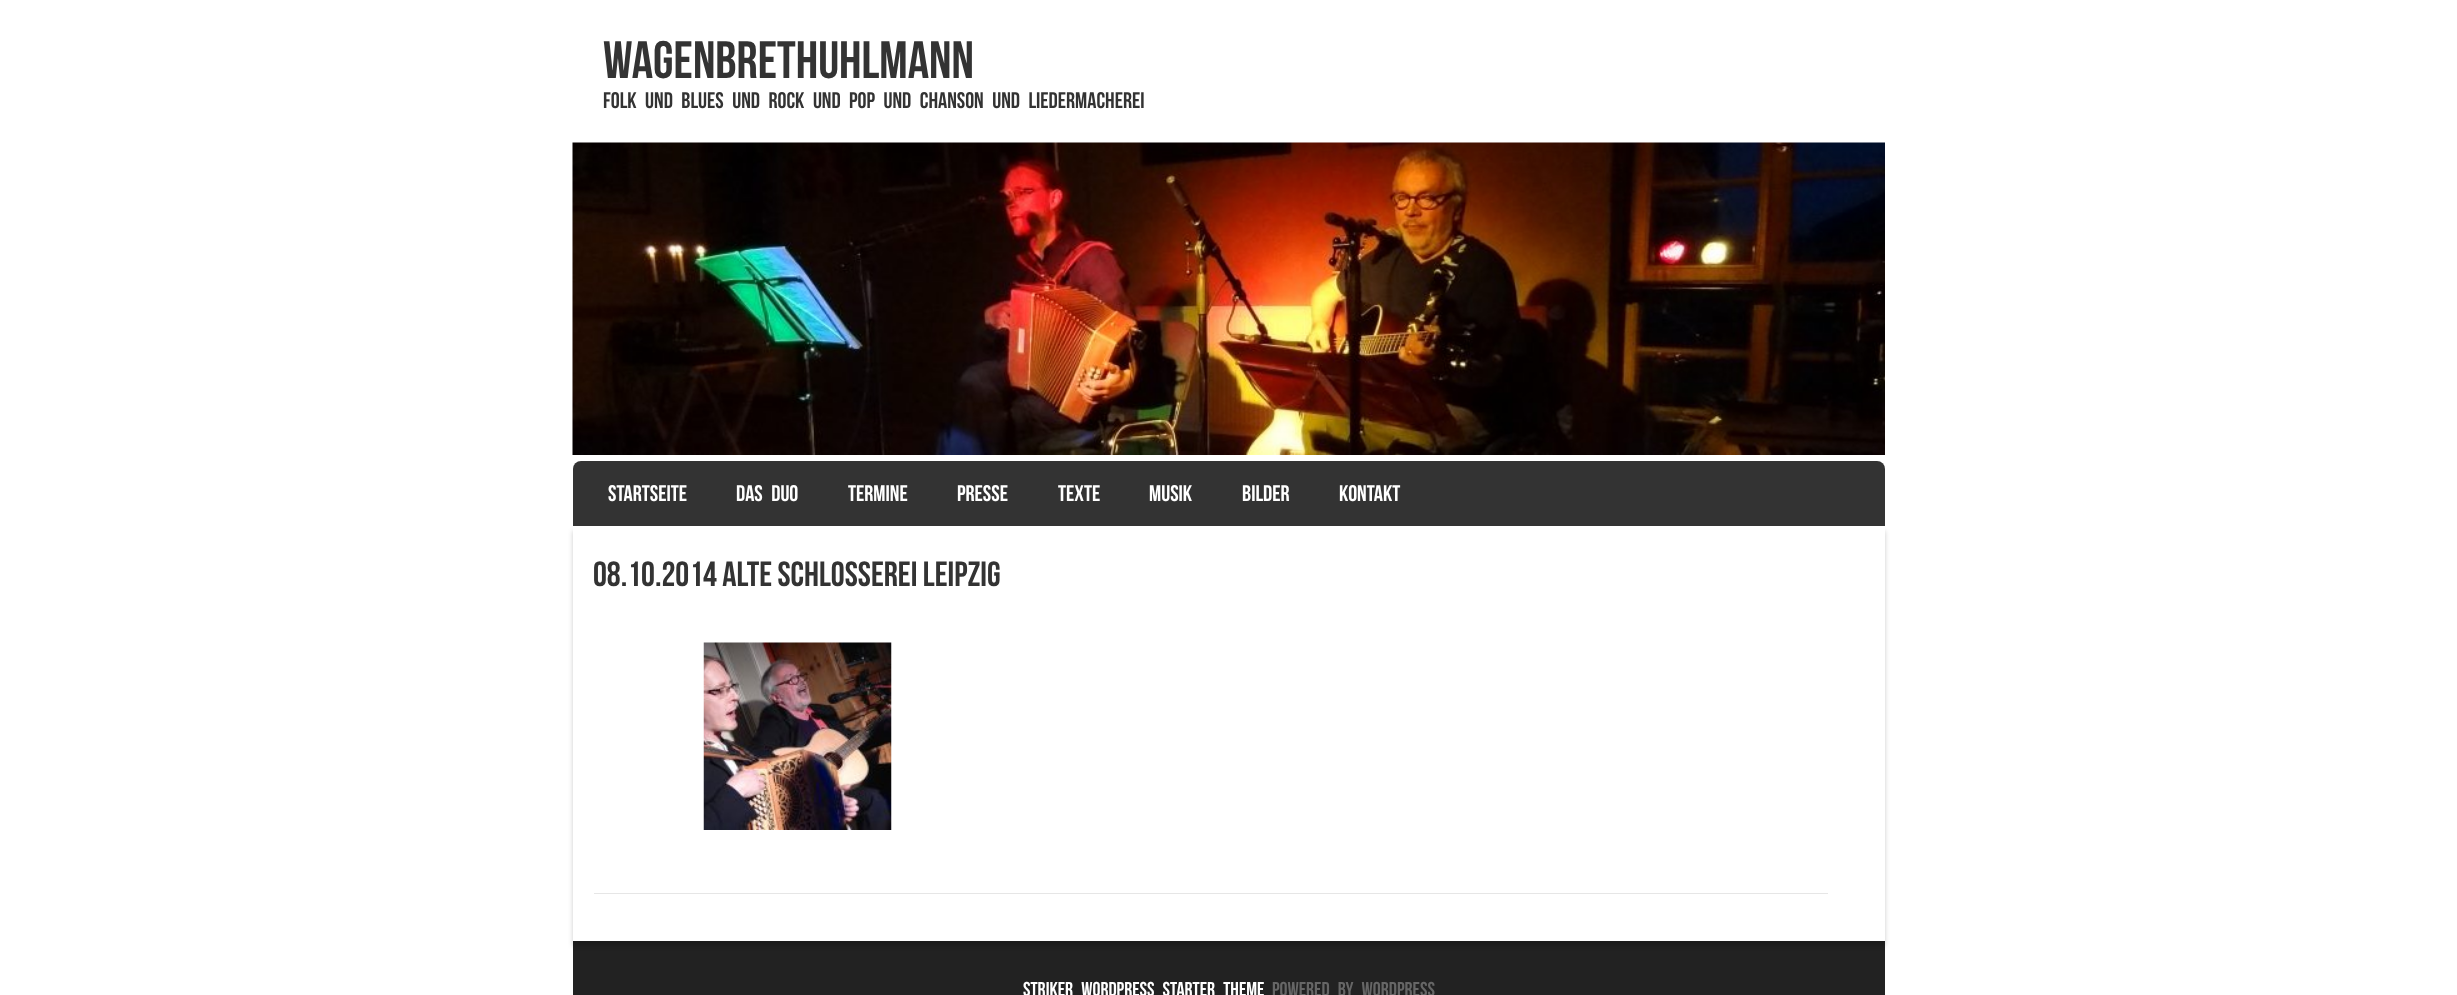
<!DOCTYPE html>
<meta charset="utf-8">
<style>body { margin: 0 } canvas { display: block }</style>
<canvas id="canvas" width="2457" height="995"></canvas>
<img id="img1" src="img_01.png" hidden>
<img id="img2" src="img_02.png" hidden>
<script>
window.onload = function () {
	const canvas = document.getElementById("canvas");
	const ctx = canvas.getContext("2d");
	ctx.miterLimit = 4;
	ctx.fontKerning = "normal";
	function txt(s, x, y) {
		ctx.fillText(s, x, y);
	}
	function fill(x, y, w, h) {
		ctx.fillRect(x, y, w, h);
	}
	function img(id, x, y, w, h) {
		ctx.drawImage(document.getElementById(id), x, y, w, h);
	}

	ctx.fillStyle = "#FFFFFF";
	fill(0, 0, 2457, 995);
	img("img1", 572, 142, 1313, 313);
	ctx.fillStyle = "#333333";
	ctx.beginPath();
	ctx.roundRect(573, 461, 1312, 65, [8, 8, 0, 0]);
	ctx.fill();
	ctx.fillStyle = "#222222";
	fill(573, 941, 1312, 54);
	ctx.save();
	ctx.beginPath();
	ctx.moveTo(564, 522);
	ctx.lineTo(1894, 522);
	ctx.lineTo(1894, 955);
	ctx.lineTo(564, 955);
	ctx.closePath();
	ctx.moveTo(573, 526);
	ctx.lineTo(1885, 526);
	ctx.lineTo(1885, 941);
	ctx.lineTo(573, 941);
	ctx.closePath();
	ctx.clip("evenodd");
	ctx.fillStyle = "rgba(0, 0, 0, 0.2)";
	ctx.filter = "blur(2.5px)";
	ctx.beginPath();
	ctx.rect(573, 531, 1312, 415);
	ctx.fill();
	ctx.filter = "none";
	ctx.restore();
	ctx.fillStyle = "#E6E6E6";
	fill(594, 893, 1234, 1);
	img("img2", 703, 642, 189, 188);
	ctx.font = "52.5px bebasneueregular";
	ctx.fillStyle = "#333333";
	txt("WagenbrethUhlmann", 603, 78);
	ctx.wordSpacing = "5px";
	ctx.font = "22.5px bebasneueregular";
	txt("Folk und Blues und Rock und Pop und Chanson und Liedermacherei", 603, 108);
	ctx.wordSpacing = "0px";
	ctx.fillStyle = "#FFFFFF";
	txt("STARTSEITE", 608, 501);
	ctx.wordSpacing = "5px";
	txt("DAS DUO", 736, 501);
	ctx.wordSpacing = "0px";
	txt("TERMINE", 848, 501);
	txt("PRESSE", 957, 501);
	txt("TEXTE", 1058, 501);
	txt("MUSIK", 1149, 501);
	txt("BILDER", 1242, 501);
	txt("KONTAKT", 1339, 501);
	ctx.font = "35px bebasneueregular";
	ctx.fillStyle = "#333333";
	txt("08.10.2014 Alte Schlosserei Leipzig", 593, 586);
	ctx.wordSpacing = "5px";
	ctx.font = "20px bebasneueregular";
	ctx.fillStyle = "#FFFFFF";
	txt("Striker WordPress Starter Theme", 1023, 996);
	ctx.fillStyle = "#666666";
	txt("Powered By WordPress", 1272, 996);
};
</script>
